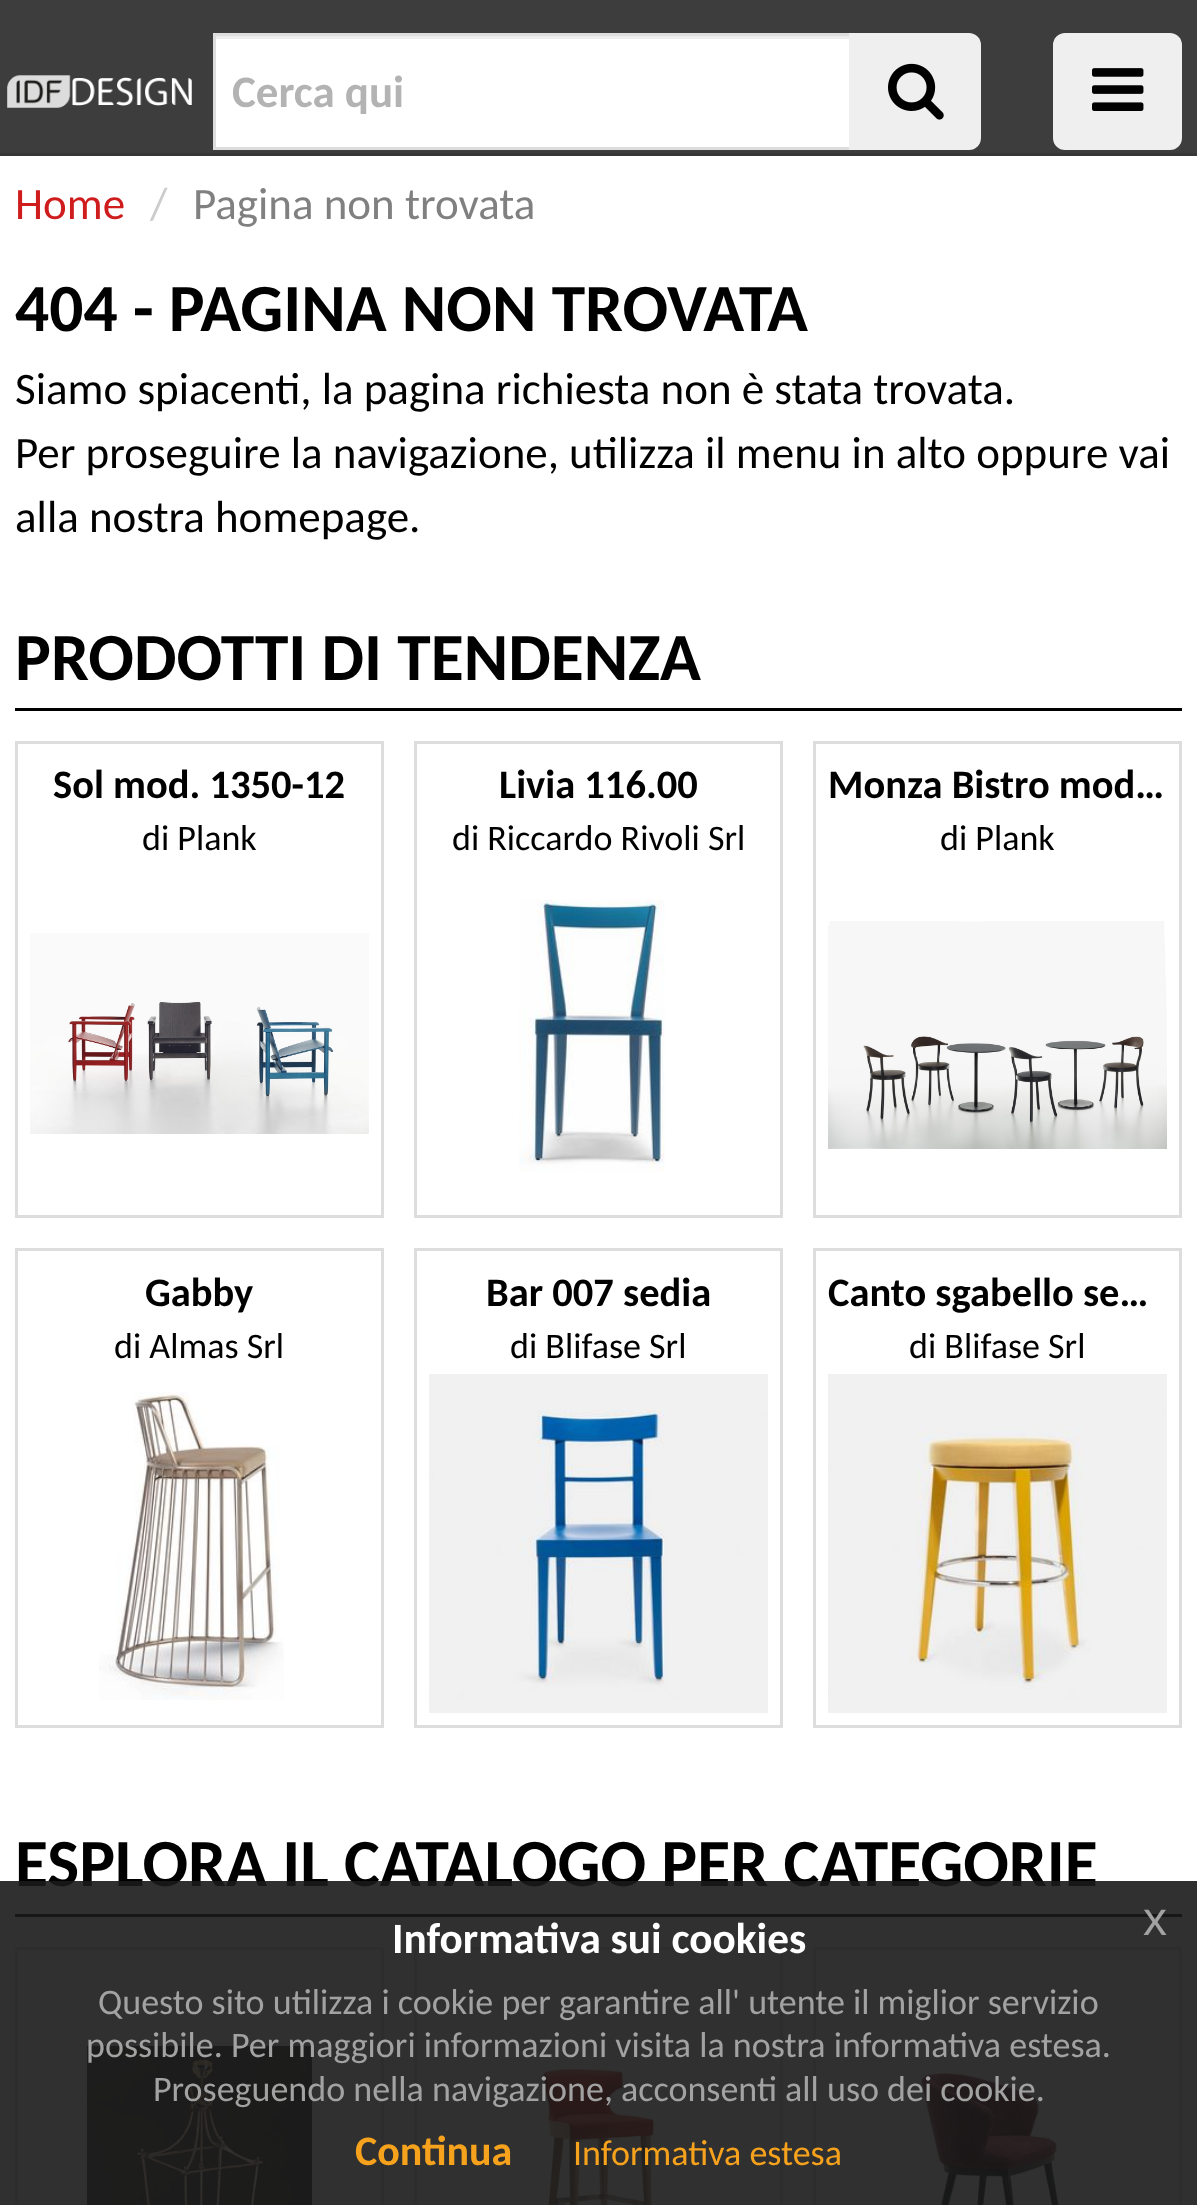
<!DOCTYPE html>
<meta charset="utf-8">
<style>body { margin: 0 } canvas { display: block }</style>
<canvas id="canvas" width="1197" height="2205"></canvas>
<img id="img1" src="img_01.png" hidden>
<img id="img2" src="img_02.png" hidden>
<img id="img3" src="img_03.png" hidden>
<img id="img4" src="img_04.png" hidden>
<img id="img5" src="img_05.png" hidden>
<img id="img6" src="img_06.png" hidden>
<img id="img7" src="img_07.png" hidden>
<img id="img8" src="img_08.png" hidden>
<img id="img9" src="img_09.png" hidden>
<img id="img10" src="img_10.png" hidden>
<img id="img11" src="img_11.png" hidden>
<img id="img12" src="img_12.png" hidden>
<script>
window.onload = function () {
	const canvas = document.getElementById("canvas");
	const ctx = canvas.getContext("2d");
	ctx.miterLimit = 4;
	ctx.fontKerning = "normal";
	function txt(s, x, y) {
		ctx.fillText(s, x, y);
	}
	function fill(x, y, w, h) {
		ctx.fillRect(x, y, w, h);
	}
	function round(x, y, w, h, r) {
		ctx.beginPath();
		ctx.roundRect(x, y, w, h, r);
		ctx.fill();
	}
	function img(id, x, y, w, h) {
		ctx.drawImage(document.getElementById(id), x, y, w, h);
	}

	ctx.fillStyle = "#FFFFFF";
	fill(0, 0, 1197, 2205);
	ctx.fillStyle = "#3D3D3D";
	fill(0, 0, 1197, 153);
	ctx.fillStyle = "#363636";
	fill(0, 153, 1197, 3);
	img("img1", 7, 75, 185, 33);
	ctx.fillStyle = "#FFFFFF";
	fill(216, 39, 633, 108);
	ctx.fillStyle = "#ECECEC";
	fill(216, 36, 633, 3);
	ctx.strokeStyle = "#DDDDDD";
	ctx.lineWidth = 3;
	ctx.strokeRect(214.5, 34.5, 636, 114);
	ctx.fillStyle = "#EFEFEF";
	ctx.beginPath();
	ctx.roundRect(849, 33, 132, 117, [0, 12, 12, 0]);
	ctx.fill();
	img("img2", 888, 63, 56, 57);
	round(1053, 33, 129, 117, 12);
	img("img3", 1092, 68, 52, 43);
	ctx.fillStyle = "#000000";
	fill(15, 708, 1167, 3);
	ctx.strokeRect(16.5, 742.5, 366, 474);
	img("img4", 30, 933, 339, 201);
	ctx.strokeRect(415.5, 742.5, 366, 474);
	img("img5", 519, 899, 146, 273);
	ctx.strokeRect(814.5, 742.5, 366, 474);
	img("img6", 828, 921, 339, 228);
	ctx.strokeRect(16.5, 1249.5, 366, 477);
	img("img7", 99, 1392, 185, 308);
	ctx.strokeRect(415.5, 1249.5, 366, 477);
	img("img8", 429, 1374, 339, 339);
	ctx.strokeRect(814.5, 1249.5, 366, 477);
	img("img9", 828, 1374, 339, 339);
	fill(15, 1914, 1167, 3);
	ctx.strokeRect(16.5, 1948.5, 366, 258);
	img("img10", 87, 2046, 225, 159);
	ctx.strokeRect(415.5, 1948.5, 366, 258);
	img("img11", 538, 2058, 117, 147);
	ctx.strokeRect(814.5, 1948.5, 366, 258);
	img("img12", 919, 2071, 141, 134);
	ctx.font = "bold 45px Carlito";
	ctx.fillStyle = "#B3B3B3";
	txt("Cerca qui", 232, 107);
	ctx.font = "45px Carlito";
	ctx.fillStyle = "#CF1C1D";
	txt("Home", 15, 219);
	ctx.fillStyle = "#CCCCCC";
	txt("/", 150, 219);
	ctx.fillStyle = "#808080";
	txt("Pagina non trovata", 193, 219);
	ctx.font = "bold 67.5px Carlito";
	ctx.fillStyle = "#000000";
	txt("404 - PAGINA NON TROVATA", 15, 331);
	ctx.font = "45px Carlito";
	txt("Siamo spiacenti, la pagina richiesta non è stata trovata.", 15, 404);
	txt("Per proseguire la navigazione, utilizza il menu in alto oppure vai", 15, 468);
	txt("alla nostra homepage.", 15, 532);
	ctx.font = "bold 67.5px Carlito";
	txt("PRODOTTI DI TENDENZA", 15, 680);
	ctx.font = "bold 40.5px Carlito";
	txt("Sol mod. 1350-12", 53, 798);
	ctx.font = "36px Carlito";
	txt("di Plank", 142, 850);
	ctx.font = "bold 40.5px Carlito";
	txt("Livia 116.00", 499, 798);
	ctx.font = "36px Carlito";
	txt("di Riccardo Rivoli Srl", 452, 850);
	ctx.font = "bold 40.5px Carlito";
	txt("Monza Bistro mod…", 828, 798);
	ctx.font = "36px Carlito";
	txt("di Plank", 940, 850);
	ctx.font = "bold 40.5px Carlito";
	txt("Gabby", 145, 1306);
	ctx.font = "36px Carlito";
	txt("di Almas Srl", 114, 1358);
	ctx.font = "bold 40.5px Carlito";
	txt("Bar 007 sedia", 486, 1306);
	ctx.font = "36px Carlito";
	txt("di Blifase Srl", 510, 1358);
	ctx.font = "bold 40.5px Carlito";
	txt("Canto sgabello se…", 828, 1306);
	ctx.font = "36px Carlito";
	txt("di Blifase Srl", 909, 1358);
	ctx.font = "bold 67.5px Carlito";
	txt("ESPLORA IL CATALOGO PER CATEGORIE", 15, 1886);
	ctx.fillStyle = "rgba(25, 25, 25, 0.9)";
	fill(0, 1881, 1197, 324);
	ctx.font = "bold 43.25px Carlito";
	ctx.fillStyle = "#FFFFFF";
	txt("Informativa sui cookies", 392, 1953);
	ctx.font = "48px Liberation Sans";
	ctx.fillStyle = "#A2A2A2";
	txt("x", 1143, 1935);
	ctx.font = "36px Carlito";
	txt("Questo sito utilizza i cookie per garantire all' utente il miglior servizio", 98, 2014);
	txt("possibile. Per maggiori informazioni visita la nostra informativa estesa.", 86, 2057);
	txt("Proseguendo nella navigazione, acconsenti all uso dei cookie.", 153, 2101);
	ctx.font = "bold 42px Carlito";
	ctx.fillStyle = "#F6A21D";
	txt("Continua", 355, 2165);
	ctx.font = "36px Carlito";
	txt("Informativa estesa", 573, 2165);
};
</script>
